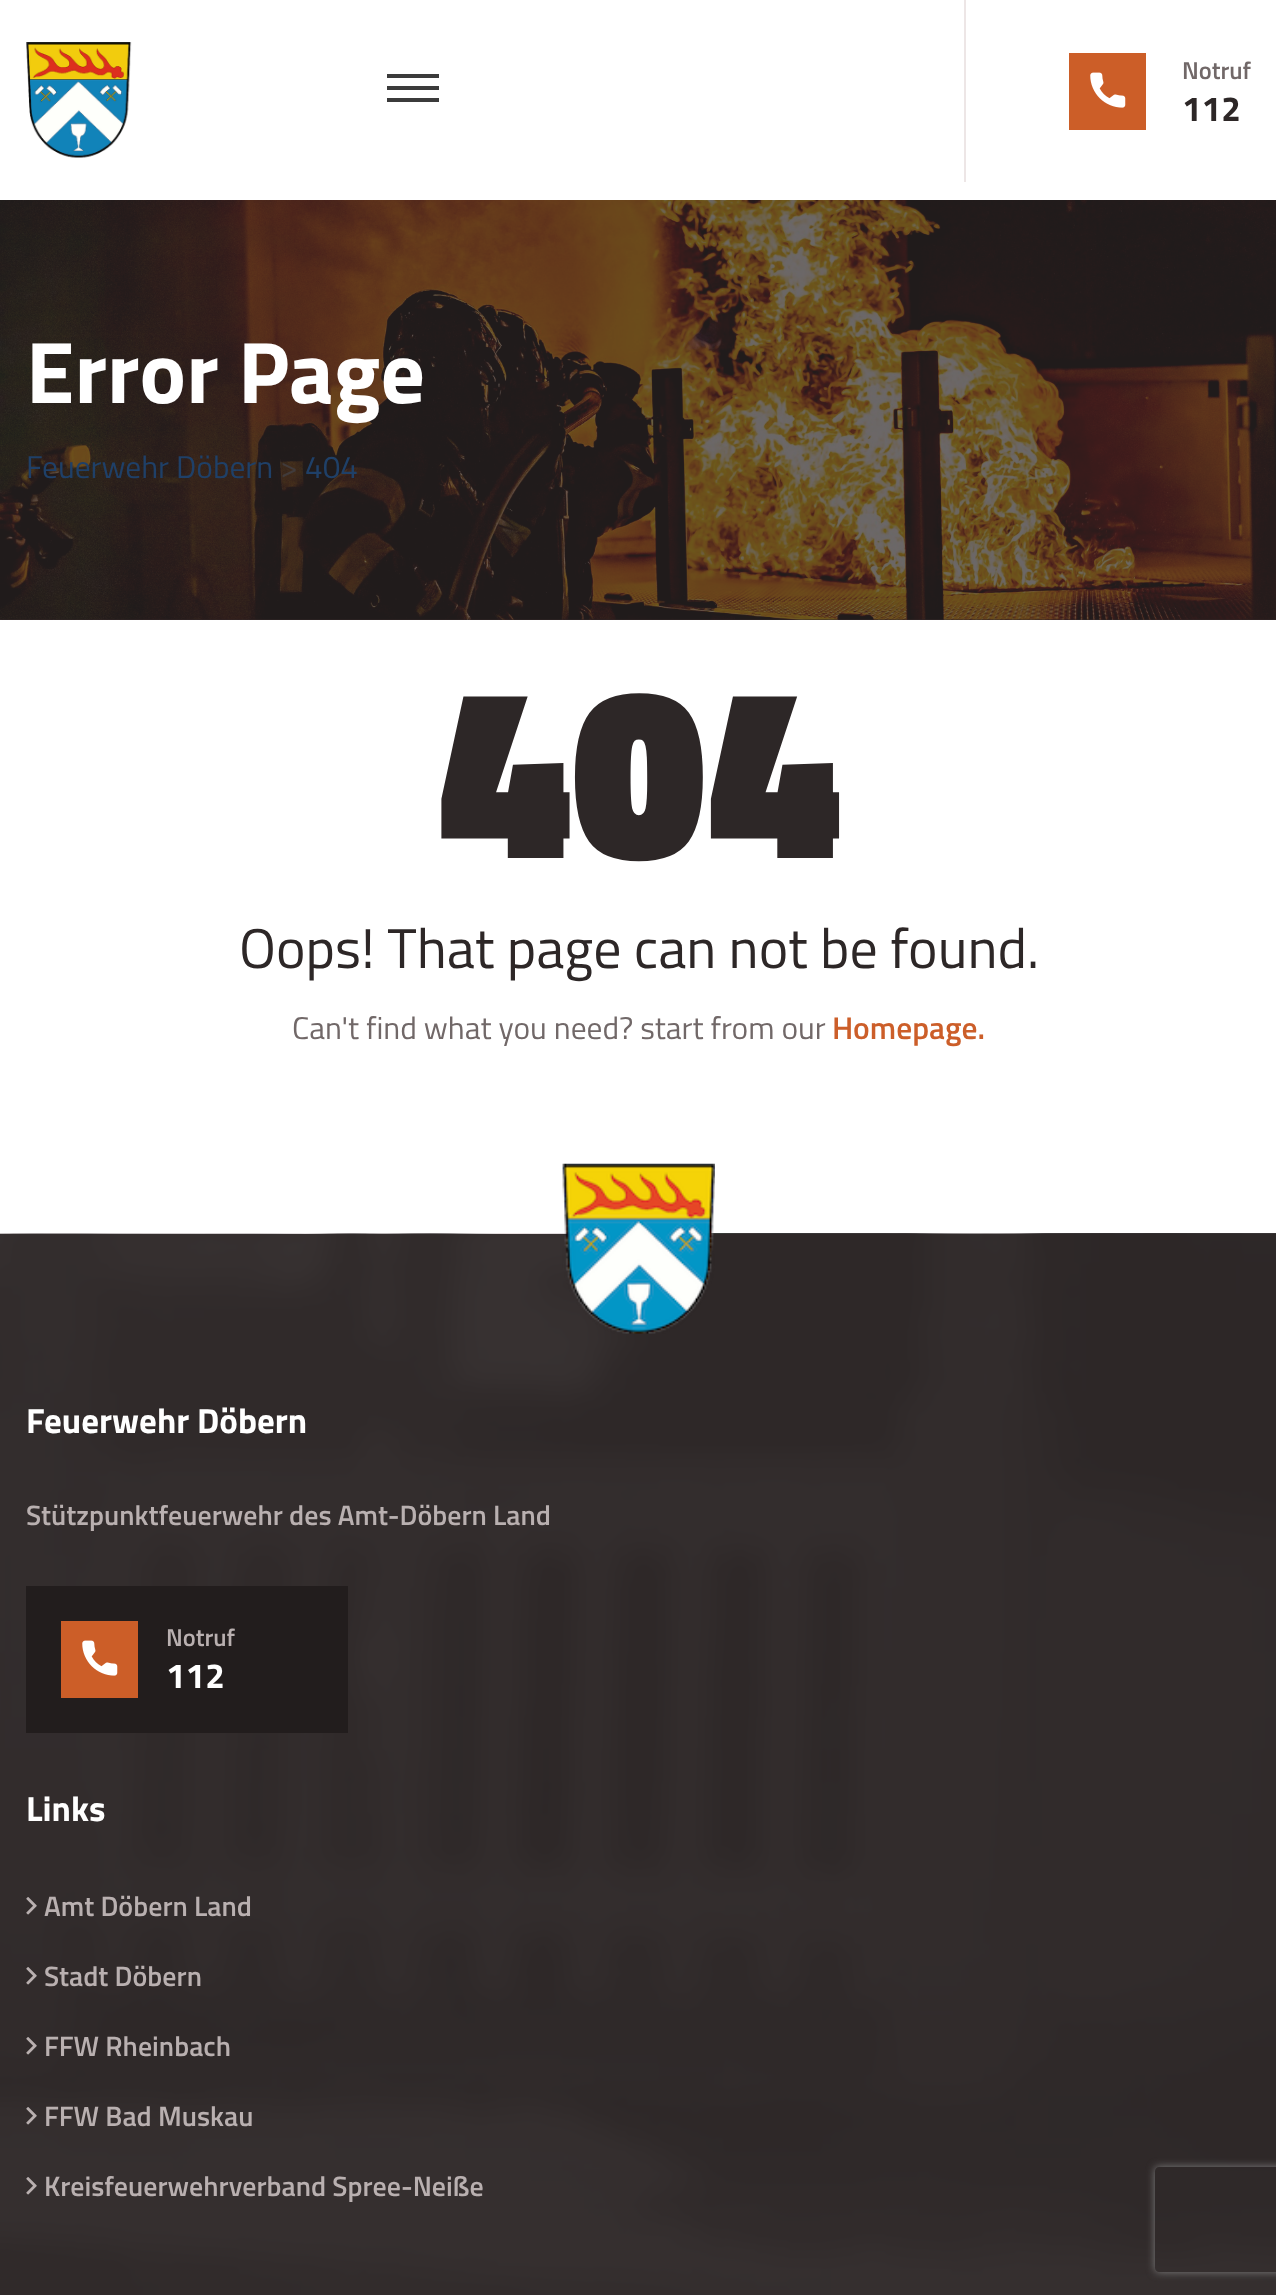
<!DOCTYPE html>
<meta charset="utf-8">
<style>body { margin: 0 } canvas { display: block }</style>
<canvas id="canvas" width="1276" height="2295"></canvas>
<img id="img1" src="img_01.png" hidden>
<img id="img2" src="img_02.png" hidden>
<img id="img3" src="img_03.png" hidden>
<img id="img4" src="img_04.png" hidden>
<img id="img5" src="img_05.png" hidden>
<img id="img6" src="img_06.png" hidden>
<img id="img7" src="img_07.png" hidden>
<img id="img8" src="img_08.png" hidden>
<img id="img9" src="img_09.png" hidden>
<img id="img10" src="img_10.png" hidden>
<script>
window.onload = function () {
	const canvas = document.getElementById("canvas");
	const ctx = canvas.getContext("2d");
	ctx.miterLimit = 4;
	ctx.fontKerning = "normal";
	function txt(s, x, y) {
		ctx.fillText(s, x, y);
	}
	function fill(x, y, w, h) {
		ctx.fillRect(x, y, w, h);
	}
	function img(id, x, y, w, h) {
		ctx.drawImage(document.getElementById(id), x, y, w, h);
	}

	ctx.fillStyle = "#FFFFFF";
	fill(0, 0, 1276, 2295);
	img("img1", 26, 42, 106, 116);
	ctx.fillStyle = "#3B3B3B";
	fill(387, 74, 52, 4);
	fill(387, 86, 52, 4);
	fill(387, 98, 52, 4);
	ctx.fillStyle = "#EDE6E6";
	fill(964, 0, 2, 182);
	ctx.fillStyle = "#CC5E28";
	fill(1069, 53, 77, 77);
	img("img2", 1090, 72, 36, 36);
	ctx.fillStyle = "#322726";
	fill(0, 619, 1276, 1);
	img("img3", 0, 200, 1276, 420);
	img("img4", 0, 1233, 1276, 1062);
	img("img5", 562, 1163, 153, 171);
	ctx.fillStyle = "#221D1D";
	fill(26, 1586, 322, 147);
	ctx.fillStyle = "#CC5E28";
	fill(61, 1621, 77, 77);
	img("img2", 82, 1640, 36, 36);
	img("img6", 26, 1897, 11, 18);
	img("img7", 26, 1967, 11, 18);
	img("img8", 26, 2037, 11, 18);
	img("img9", 26, 2107, 11, 18);
	img("img10", 26, 2177, 11, 18);
	ctx.save();
	ctx.beginPath();
	ctx.moveTo(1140, 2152);
	ctx.lineTo(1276, 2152);
	ctx.lineTo(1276, 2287);
	ctx.lineTo(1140, 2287);
	ctx.closePath();
	ctx.moveTo(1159, 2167);
	ctx.lineTo(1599, 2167);
	ctx.bezierCurveTo(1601, 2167, 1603, 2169, 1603, 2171);
	ctx.lineTo(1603, 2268);
	ctx.bezierCurveTo(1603, 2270, 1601, 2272, 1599, 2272);
	ctx.lineTo(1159, 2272);
	ctx.bezierCurveTo(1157, 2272, 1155, 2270, 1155, 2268);
	ctx.lineTo(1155, 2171);
	ctx.bezierCurveTo(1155, 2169, 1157, 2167, 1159, 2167);
	ctx.closePath();
	ctx.clip("evenodd");
	ctx.fillStyle = "#808080";
	ctx.filter = "blur(4.5px)";
	ctx.beginPath();
	ctx.roundRect(1155, 2167, 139, 105, 4);
	ctx.fill();
	ctx.filter = "none";
	ctx.restore();
	ctx.font = "600 24.5px Titillium Web";
	ctx.fillStyle = "#716868";
	txt("Notruf", 1182, 79);
	ctx.font = "bold 35px Titillium Web";
	ctx.fillStyle = "#2D2727";
	txt("112", 1182, 121);
	ctx.font = "bold 87.5px Titillium Web";
	ctx.fillStyle = "#FFFFFF";
	txt("Error Page", 26, 403);
	ctx.font = "31.5px Titillium Web";
	ctx.fillStyle = "#1F4068";
	txt("Feuerwehr Döbern", 26, 478);
	ctx.fillStyle = "#413B3B";
	txt(">", 280, 478);
	ctx.fillStyle = "#1F4068";
	txt("404", 305, 478);
	ctx.font = "900 245px Titillium Web";
	ctx.fillStyle = "#2D2727";
	txt("404", 437, 858);
	ctx.font = "56px Titillium Web";
	txt("Oops! That page can not be found.", 239, 968);
	ctx.font = "31.5px Titillium Web";
	ctx.fillStyle = "#716868";
	txt("Can't find what you need? start from our", 292, 1039);
	ctx.font = "600 31.5px Titillium Web";
	ctx.fillStyle = "#CC5E29";
	txt("Homepage.", 832, 1039);
	ctx.font = "bold 35px Titillium Web";
	ctx.fillStyle = "#FFFFFF";
	txt("Feuerwehr Döbern", 26, 1433);
	ctx.font = "600 28px Titillium Web";
	ctx.fillStyle = "#B9B0B0";
	txt("Stützpunktfeuerwehr des Amt-Döbern Land", 26, 1525);
	ctx.font = "600 24.5px Titillium Web";
	txt("Notruf", 166, 1646);
	ctx.font = "bold 35px Titillium Web";
	ctx.fillStyle = "#FFFFFF";
	txt("112", 166, 1688);
	txt("Links", 26, 1821);
	ctx.font = "600 28px Titillium Web";
	ctx.fillStyle = "#B9B0B0";
	txt("Amt Döbern Land", 44, 1916);
	txt("Stadt Döbern", 44, 1986);
	txt("FFW Rheinbach", 44, 2056);
	txt("FFW Bad Muskau", 44, 2126);
	txt("Kreisfeuerwehrverband Spree-Neiße", 44, 2196);
};
</script>
